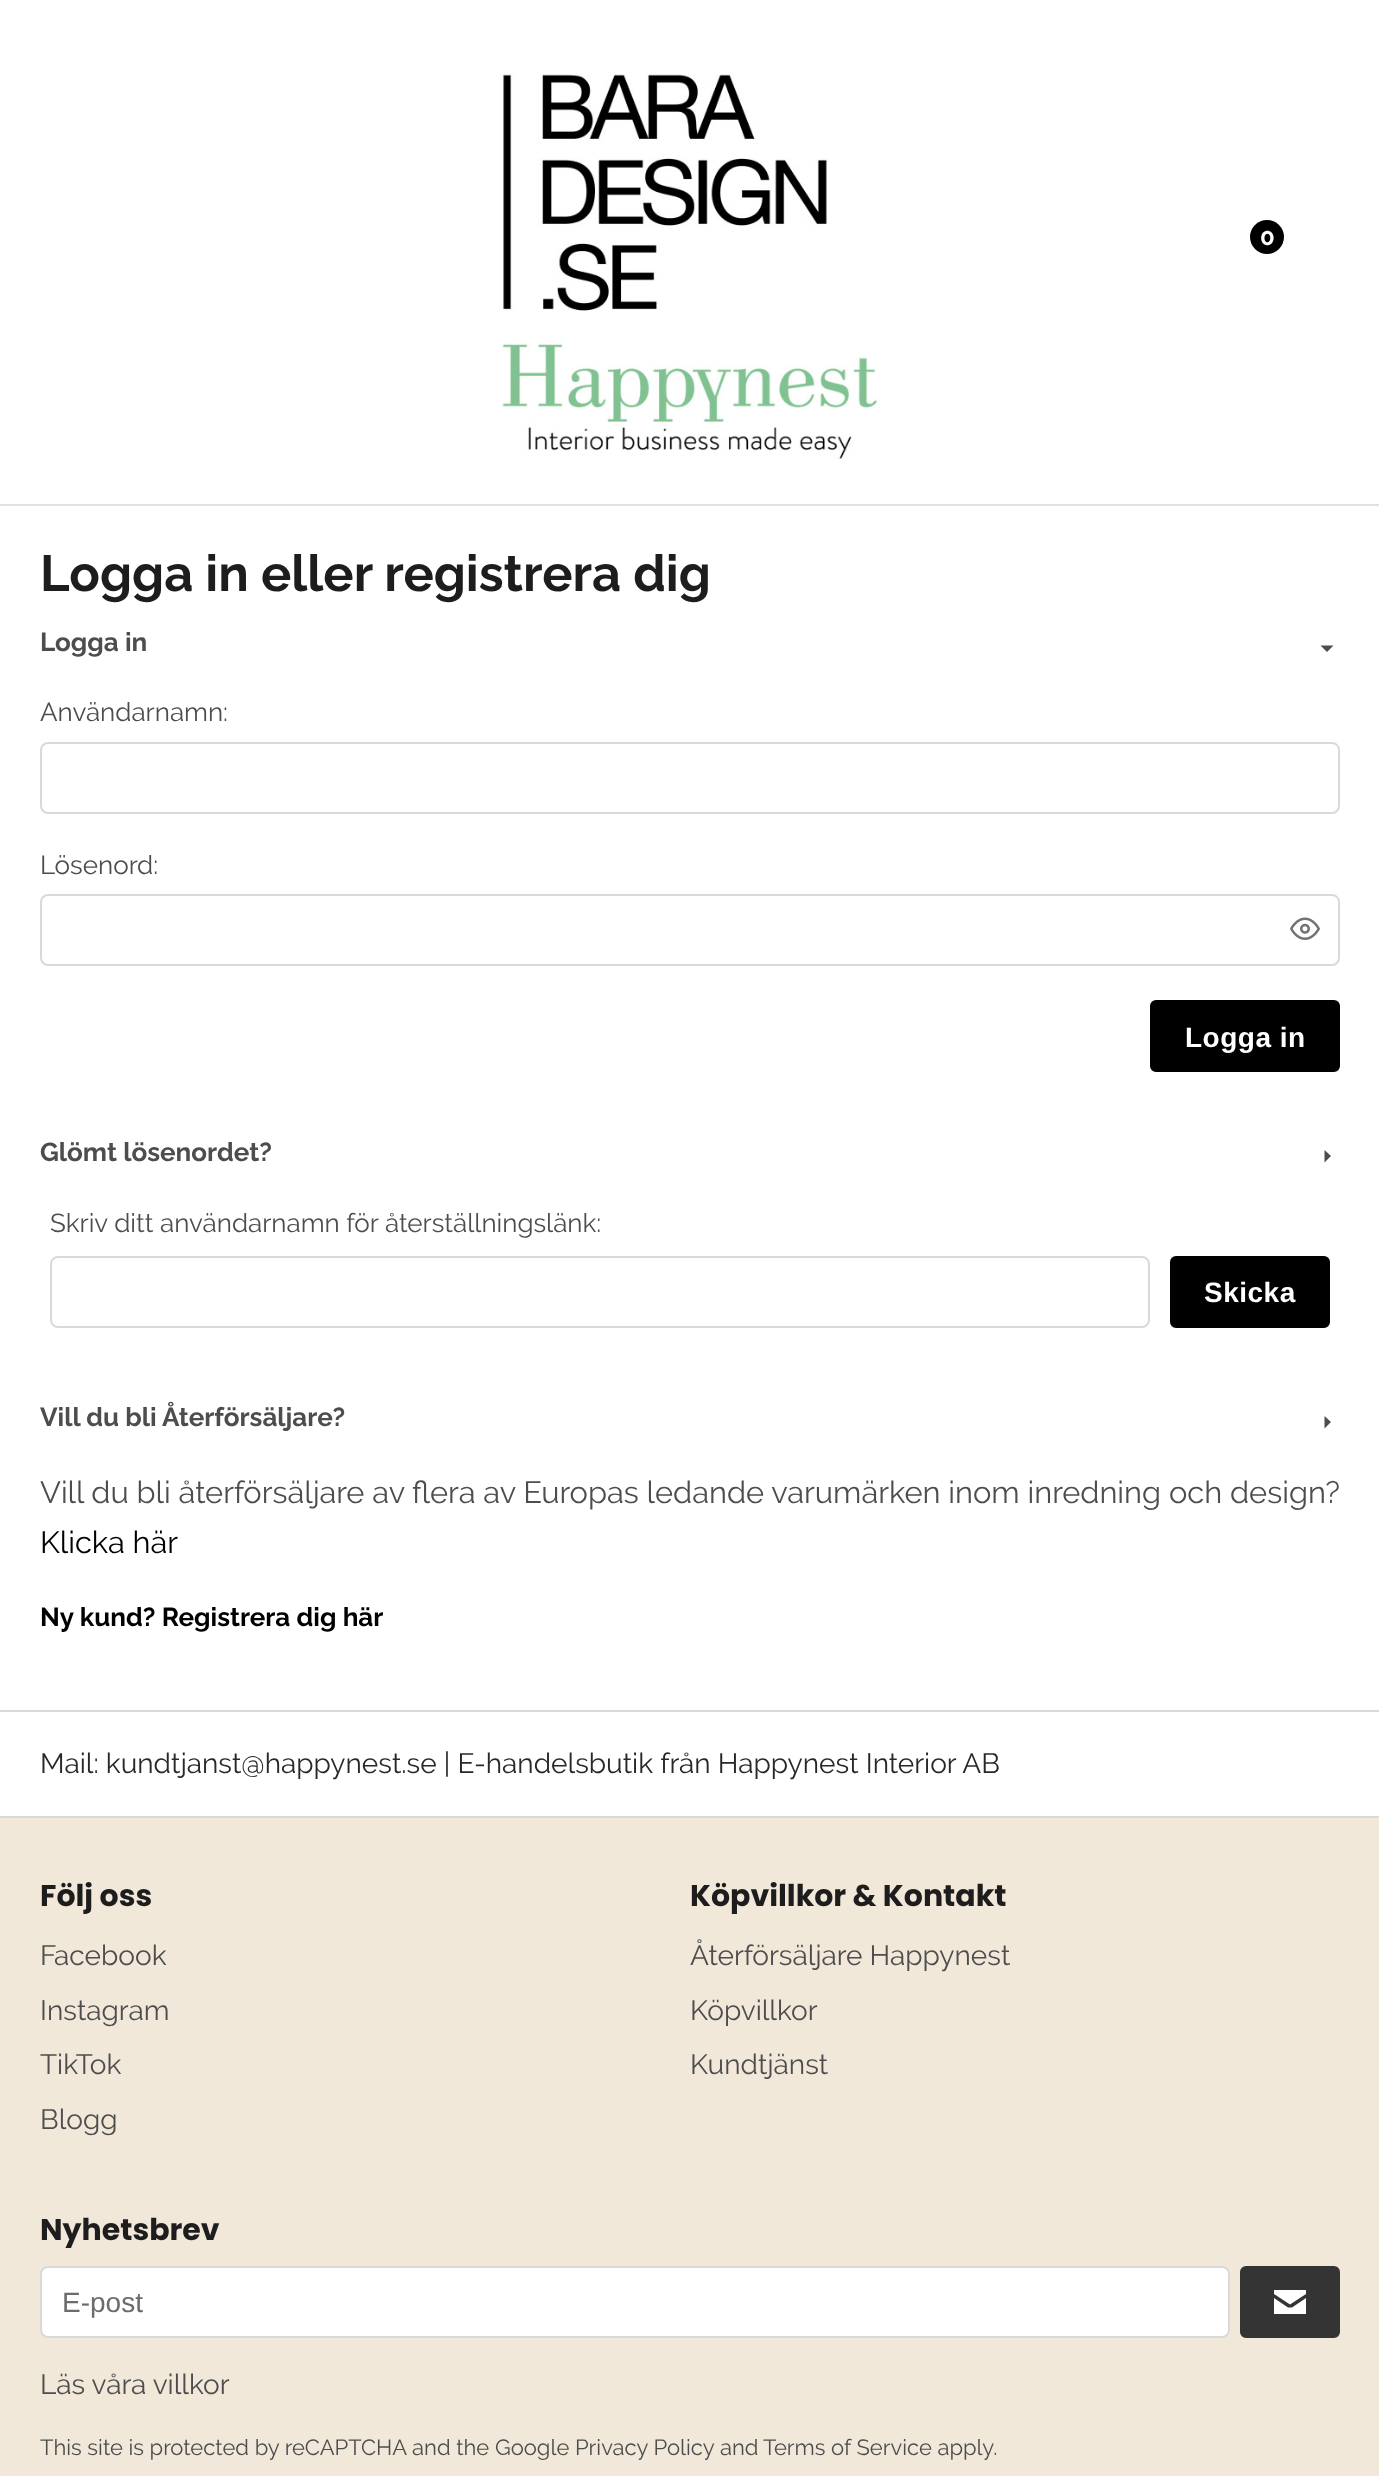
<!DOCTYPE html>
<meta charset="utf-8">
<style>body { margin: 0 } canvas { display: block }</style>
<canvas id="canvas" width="1379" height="2476"></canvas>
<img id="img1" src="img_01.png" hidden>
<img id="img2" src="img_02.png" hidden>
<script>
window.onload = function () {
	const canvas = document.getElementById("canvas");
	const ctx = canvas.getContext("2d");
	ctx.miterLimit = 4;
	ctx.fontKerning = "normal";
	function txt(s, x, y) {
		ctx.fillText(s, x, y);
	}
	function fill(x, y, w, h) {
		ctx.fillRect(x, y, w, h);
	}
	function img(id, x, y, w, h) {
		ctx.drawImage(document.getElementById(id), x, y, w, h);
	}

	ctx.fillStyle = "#FFFFFF";
	fill(0, 0, 1379, 2476);
	ctx.fillStyle = "#E1E1E1";
	fill(0, 504, 1379, 2);
	img("img1", 502, 74, 379, 385);
	ctx.fillStyle = "#000000";
	ctx.beginPath();
	ctx.arc(1267, 237, 17, 0, Math.PI * 2);
	ctx.fill();
	ctx.fillStyle = "#4D4D4D";
	ctx.beginPath();
	ctx.moveTo(1333.5, 645.5);
	ctx.lineTo(1327, 652);
	ctx.lineTo(1320.5, 645.5);
	ctx.closePath();
	ctx.fill();
	ctx.beginPath();
	ctx.roundRect(41, 743, 1298, 70, 7);
	ctx.strokeStyle = "#D9D9D9";
	ctx.lineWidth = 2;
	ctx.stroke();
	ctx.beginPath();
	ctx.roundRect(41, 895, 1298, 70, 7);
	ctx.stroke();
	img("img2", 1290, 917, 30, 23);
	ctx.fillStyle = "#000000";
	ctx.beginPath();
	ctx.roundRect(1151, 1001, 188, 70, 5);
	ctx.fill();
	ctx.strokeStyle = "#000000";
	ctx.stroke();
	ctx.fillStyle = "#4D4D4D";
	ctx.beginPath();
	ctx.moveTo(1331, 1156);
	ctx.lineTo(1324.5, 1162.5);
	ctx.lineTo(1324.5, 1150);
	ctx.closePath();
	ctx.fill();
	ctx.beginPath();
	ctx.roundRect(51, 1257, 1098, 70, 7);
	ctx.strokeStyle = "#D9D9D9";
	ctx.stroke();
	ctx.fillStyle = "#000000";
	ctx.beginPath();
	ctx.roundRect(1171, 1257, 158, 70, 5);
	ctx.fill();
	ctx.strokeStyle = "#000000";
	ctx.stroke();
	ctx.fillStyle = "#4D4D4D";
	ctx.beginPath();
	ctx.moveTo(1331, 1422);
	ctx.lineTo(1324.5, 1428.5);
	ctx.lineTo(1324.5, 1416);
	ctx.closePath();
	ctx.fill();
	ctx.fillStyle = "#F2E8DA";
	fill(0, 1818, 1379, 658);
	ctx.fillStyle = "#D9D9D9";
	fill(0, 1710, 1379, 2);
	fill(0, 1816, 1379, 2);
	ctx.fillStyle = "#FFFFFF";
	ctx.beginPath();
	ctx.roundRect(41, 2267, 1188, 70, 7);
	ctx.fill();
	ctx.strokeStyle = "#D9D9D9";
	ctx.stroke();
	ctx.fillStyle = "#343434";
	ctx.beginPath();
	ctx.roundRect(1241, 2267, 98, 70, 5);
	ctx.fill();
	ctx.strokeStyle = "#343434";
	ctx.stroke();
	ctx.fillStyle = "#FFFFFF";
	ctx.beginPath();
	ctx.moveTo(1306, 2298);
	ctx.lineTo(1306, 2314);
	ctx.lineTo(1274, 2314);
	ctx.lineTo(1274, 2298);
	ctx.lineTo(1288, 2307.5);
	ctx.lineTo(1292, 2307.5);
	ctx.closePath();
	ctx.moveTo(1306, 2290);
	ctx.lineTo(1306, 2294);
	ctx.lineTo(1290, 2304.5);
	ctx.lineTo(1274, 2294);
	ctx.lineTo(1274, 2290);
	ctx.closePath();
	ctx.fill();
	ctx.font = "bold 24px Raleway";
	txt("0", 1260, 245);
	ctx.font = "bold 50.6px Raleway";
	ctx.fillStyle = "#1D1D1D";
	txt("Logga in eller registrera dig", 40, 591);
	ctx.font = "bold 26px Raleway";
	ctx.fillStyle = "#4D4D4D";
	txt("Logga in", 40, 651);
	ctx.font = "26px Raleway";
	txt("Användarnamn:", 40, 721);
	txt("Lösenord:", 40, 874);
	ctx.letterSpacing = "0.5px";
	ctx.font = "bold 28px Liberation Sans";
	ctx.fillStyle = "#FFFFFF";
	txt("Logga in", 1185, 1047);
	ctx.letterSpacing = "0px";
	ctx.font = "bold 26px Raleway";
	ctx.fillStyle = "#4D4D4D";
	txt("Glömt lösenordet?", 40, 1161);
	ctx.font = "26px Raleway";
	txt("Skriv ditt användarnamn för återställningslänk:", 50, 1232);
	ctx.letterSpacing = "0.5px";
	ctx.font = "bold 28px Liberation Sans";
	ctx.fillStyle = "#FFFFFF";
	txt("Skicka", 1204, 1302);
	ctx.letterSpacing = "0px";
	ctx.font = "bold 26px Raleway";
	ctx.fillStyle = "#4D4D4D";
	txt("Vill du bli Återförsäljare?", 40, 1426);
	ctx.font = "30.8px Raleway";
	txt("Vill du bli återförsäljare av flera av Europas ledande varumärken inom inredning och design?", 40, 1503);
	ctx.fillStyle = "#000000";
	txt("Klicka här", 40, 1553);
	ctx.font = "bold 26px Raleway";
	txt("Ny kund? Registrera dig här", 40, 1626);
	ctx.font = "28px Raleway";
	ctx.fillStyle = "#282828";
	txt("Mail: kundtjanst@happynest.se | E-handelsbutik från Happynest Interior AB", 40, 1773);
	ctx.font = "bold 30px Poppins";
	ctx.fillStyle = "#1D1D1D";
	txt("Följ oss", 40, 1906);
	ctx.font = "28px Raleway";
	ctx.fillStyle = "#4D4D4D";
	txt("Facebook", 40, 1965);
	txt("Instagram", 40, 2020);
	txt("TikTok", 40, 2074);
	txt("Blogg", 40, 2129);
	ctx.font = "bold 30px Poppins";
	ctx.fillStyle = "#1D1D1D";
	txt("Köpvillkor & Kontakt", 690, 1906);
	ctx.font = "28px Raleway";
	ctx.fillStyle = "#4D4D4D";
	txt("Återförsäljare Happynest", 690, 1965);
	txt("Köpvillkor", 690, 2020);
	txt("Kundtjänst", 690, 2074);
	ctx.font = "bold 30px Poppins";
	ctx.fillStyle = "#1D1D1D";
	txt("Nyhetsbrev", 40, 2240);
	ctx.font = "28px Liberation Sans";
	ctx.fillStyle = "#6C6C6C";
	txt("E-post", 62, 2312);
	ctx.font = "28px Raleway";
	ctx.fillStyle = "#4D4D4D";
	txt("Läs våra villkor", 40, 2394);
	ctx.font = "22px Raleway";
	txt("This site is protected by reCAPTCHA and the Google Privacy Policy", 40, 2455);
	txt("and", 720, 2455);
	txt("Terms of Service apply.", 763, 2455);
};
</script>
